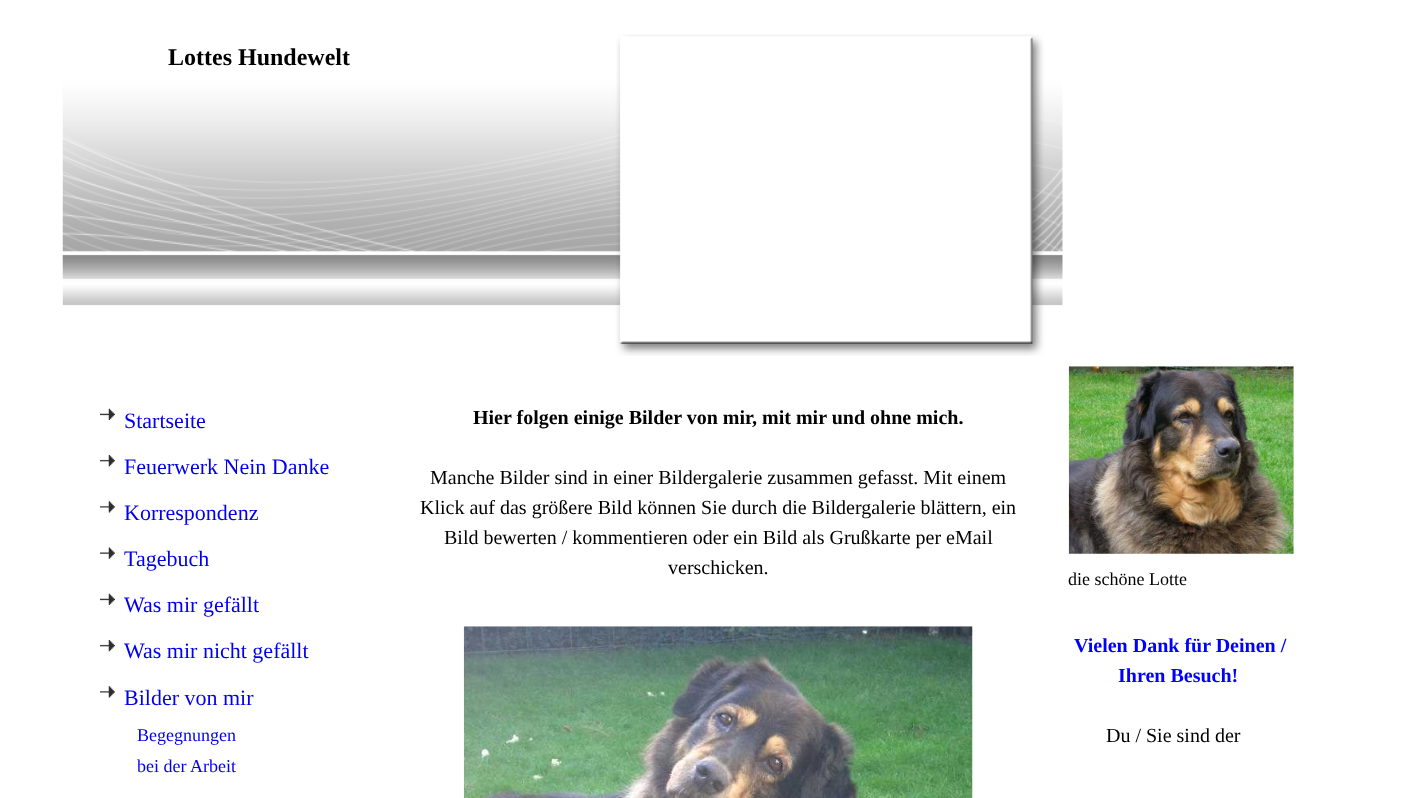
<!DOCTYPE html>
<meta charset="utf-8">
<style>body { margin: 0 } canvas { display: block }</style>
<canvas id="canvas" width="1423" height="798"></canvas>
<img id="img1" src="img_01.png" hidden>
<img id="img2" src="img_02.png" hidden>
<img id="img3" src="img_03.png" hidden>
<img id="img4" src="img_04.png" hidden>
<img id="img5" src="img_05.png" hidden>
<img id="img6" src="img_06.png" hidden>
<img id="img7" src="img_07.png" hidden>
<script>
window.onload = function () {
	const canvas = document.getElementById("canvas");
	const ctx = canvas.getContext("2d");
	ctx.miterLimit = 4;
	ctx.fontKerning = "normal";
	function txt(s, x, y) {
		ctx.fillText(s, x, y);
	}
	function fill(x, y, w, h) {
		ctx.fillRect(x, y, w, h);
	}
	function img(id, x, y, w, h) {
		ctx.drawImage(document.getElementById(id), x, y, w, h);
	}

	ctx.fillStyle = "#FFFFFF";
	fill(0, 0, 1423, 798);
	img("img1", 62, 34, 1001, 322);
	img("img2", 100, 408, 15, 12);
	img("img3", 100, 455, 15, 12);
	img("img4", 100, 501, 15, 12);
	img("img5", 100, 547, 15, 12);
	img("img2", 100, 593, 15, 12);
	img("img3", 100, 640, 15, 12);
	img("img4", 100, 686, 15, 12);
	img("img6", 463, 626, 510, 172);
	img("img7", 1068, 366, 226, 188);
	ctx.font = "bold 24px Liberation Serif";
	ctx.fillStyle = "#000000";
	txt("Lottes Hundewelt", 168, 65);
	ctx.font = "22px Liberation Serif";
	ctx.fillStyle = "#0000EE";
	txt("Startseite", 124, 428);
	txt("Feuerwerk Nein Danke", 124, 474);
	txt("Korrespondenz", 124, 520);
	txt("Tagebuch", 124, 566);
	txt("Was mir gefällt", 124, 612);
	txt("Was mir nicht gefällt", 124, 658);
	txt("Bilder von mir", 124, 705);
	ctx.font = "18px Liberation Serif";
	txt("Begegnungen", 137, 741);
	txt("bei der Arbeit", 137, 772);
	ctx.font = "bold 20px Liberation Serif";
	ctx.fillStyle = "#000000";
	txt("Hier folgen einige Bilder von mir, mit mir und ohne mich.", 473, 424);
	ctx.font = "20px Liberation Serif";
	txt("Manche Bilder sind in einer Bildergalerie zusammen gefasst. Mit einem", 430, 484);
	txt("Klick auf das größere Bild können Sie durch die Bildergalerie blättern, ein", 420, 514);
	txt("Bild bewerten / kommentieren oder ein Bild als Grußkarte per eMail", 444, 544);
	txt("verschicken.", 668, 574);
	ctx.font = "18px Liberation Serif";
	txt("die schöne Lotte", 1068, 585);
	ctx.font = "bold 20px Liberation Serif";
	ctx.fillStyle = "#0000FF";
	txt("Vielen Dank für Deinen /", 1074, 652);
	txt("Ihren Besuch!", 1118, 682);
	ctx.font = "20px Liberation Serif";
	ctx.fillStyle = "#000000";
	txt("Du / Sie sind der", 1106, 742);
};
</script>
